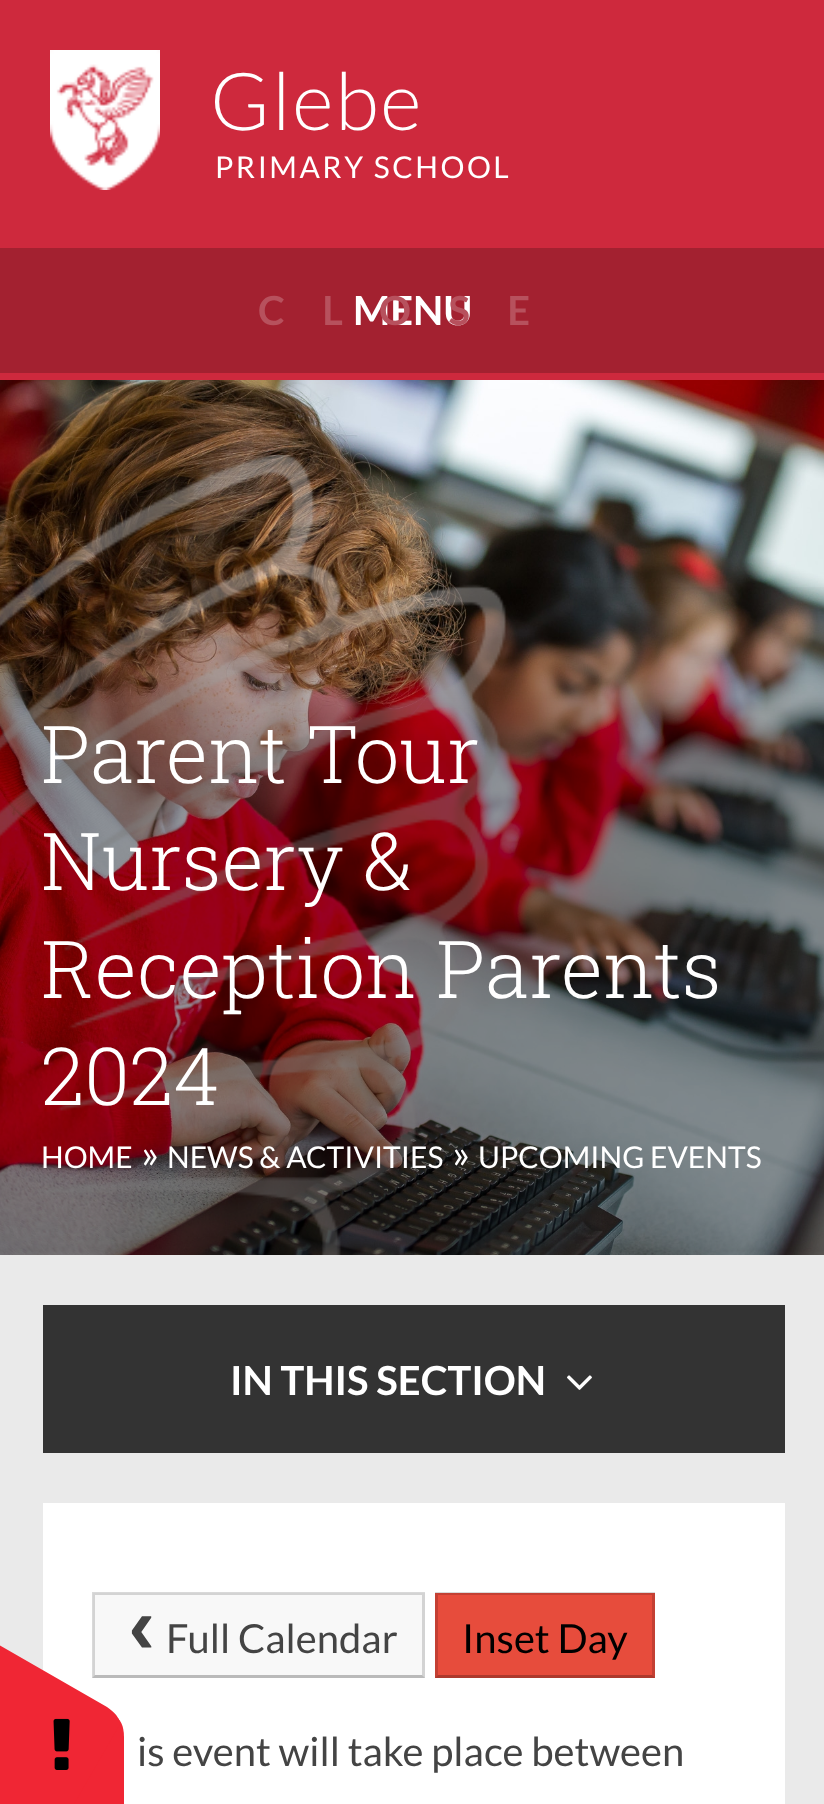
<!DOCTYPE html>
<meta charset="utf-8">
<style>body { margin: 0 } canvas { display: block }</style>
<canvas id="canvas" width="824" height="1804"></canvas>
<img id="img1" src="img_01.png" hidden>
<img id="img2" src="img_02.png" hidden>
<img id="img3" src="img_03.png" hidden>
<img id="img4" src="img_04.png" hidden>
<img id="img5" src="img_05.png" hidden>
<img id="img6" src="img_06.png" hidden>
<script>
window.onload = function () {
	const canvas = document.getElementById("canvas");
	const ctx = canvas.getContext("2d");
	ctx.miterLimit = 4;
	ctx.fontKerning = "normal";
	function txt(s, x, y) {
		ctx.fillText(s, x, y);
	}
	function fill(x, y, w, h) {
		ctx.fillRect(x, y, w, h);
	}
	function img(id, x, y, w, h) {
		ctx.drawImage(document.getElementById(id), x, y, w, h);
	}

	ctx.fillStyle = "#EAEAEA";
	fill(0, 0, 824, 1804);
	ctx.fillStyle = "#CE293D";
	fill(0, 0, 824, 380);
	img("img1", 50, 50, 110, 140);
	ctx.fillStyle = "#A32130";
	fill(0, 248, 824, 125);
	img("img2", 0, 380, 824, 875);
	img("img3", 0, 455, 506, 800);
	img("img4", 0, 587, 824, 668);
	ctx.fillStyle = "#333333";
	fill(43, 1305, 742, 148);
	img("img5", 567, 1375, 25, 15);
	ctx.fillStyle = "#FFFFFF";
	fill(43, 1503, 742, 301);
	ctx.fillStyle = "#F8F8F8";
	fill(93, 1593, 332, 85);
	ctx.fillStyle = "rgba(0, 0, 0, 0.15)";
	ctx.beginPath();
	ctx.moveTo(92, 1592);
	ctx.lineTo(425, 1592);
	ctx.lineTo(422, 1595);
	ctx.lineTo(95, 1595);
	ctx.closePath();
	ctx.fill();
	ctx.beginPath();
	ctx.moveTo(425, 1592);
	ctx.lineTo(425, 1678);
	ctx.lineTo(422, 1675);
	ctx.lineTo(422, 1595);
	ctx.closePath();
	ctx.fill();
	ctx.fillStyle = "rgba(0, 0, 0, 0.25)";
	ctx.beginPath();
	ctx.moveTo(425, 1678);
	ctx.lineTo(92, 1678);
	ctx.lineTo(95, 1675);
	ctx.lineTo(422, 1675);
	ctx.closePath();
	ctx.fill();
	ctx.fillStyle = "rgba(0, 0, 0, 0.15)";
	ctx.beginPath();
	ctx.moveTo(92, 1678);
	ctx.lineTo(92, 1592);
	ctx.lineTo(95, 1595);
	ctx.lineTo(95, 1675);
	ctx.closePath();
	ctx.fill();
	ctx.fillStyle = "#E74C3C";
	fill(435, 1593, 220, 85);
	ctx.fillStyle = "rgba(0, 0, 0, 0.15)";
	ctx.beginPath();
	ctx.moveTo(435, 1592);
	ctx.lineTo(655, 1592);
	ctx.lineTo(652, 1595);
	ctx.lineTo(438, 1595);
	ctx.closePath();
	ctx.fill();
	ctx.beginPath();
	ctx.moveTo(655, 1592);
	ctx.lineTo(655, 1678);
	ctx.lineTo(652, 1675);
	ctx.lineTo(652, 1595);
	ctx.closePath();
	ctx.fill();
	ctx.fillStyle = "rgba(0, 0, 0, 0.25)";
	ctx.beginPath();
	ctx.moveTo(655, 1678);
	ctx.lineTo(435, 1678);
	ctx.lineTo(438, 1675);
	ctx.lineTo(652, 1675);
	ctx.closePath();
	ctx.fill();
	ctx.fillStyle = "rgba(0, 0, 0, 0.15)";
	ctx.beginPath();
	ctx.moveTo(435, 1678);
	ctx.lineTo(435, 1592);
	ctx.lineTo(438, 1595);
	ctx.lineTo(438, 1675);
	ctx.closePath();
	ctx.fill();
	ctx.fillStyle = "#F02634";
	ctx.beginPath();
	ctx.moveTo(124, 1737);
	ctx.lineTo(124, 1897);
	ctx.bezierCurveTo(124, 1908, 120, 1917, 114, 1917);
	ctx.lineTo(-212, 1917);
	ctx.bezierCurveTo(-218, 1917, -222, 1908, -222, 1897);
	ctx.lineTo(-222, 1737);
	ctx.bezierCurveTo(-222, 1726, -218, 1717, -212, 1717);
	ctx.lineTo(114, 1717);
	ctx.bezierCurveTo(120, 1717, 124, 1726, 124, 1737);
	ctx.closePath();
	ctx.fill();
	ctx.beginPath();
	ctx.moveTo(-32, 1627);
	ctx.lineTo(107, 1707);
	ctx.bezierCurveTo(116, 1713, 122, 1721, 119, 1726);
	ctx.lineTo(-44, 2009);
	ctx.bezierCurveTo(-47, 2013, -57, 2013, -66, 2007);
	ctx.lineTo(-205, 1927);
	ctx.bezierCurveTo(-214, 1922, -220, 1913, -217, 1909);
	ctx.lineTo(-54, 1626);
	ctx.bezierCurveTo(-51, 1621, -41, 1622, -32, 1627);
	ctx.closePath();
	ctx.fill();
	img("img6", 53, 1718, 17, 52);
	ctx.letterSpacing = "1.75px";
	ctx.font = "300 80px Lato";
	ctx.fillStyle = "#FFFFFF";
	txt("Glebe", 210, 130);
	ctx.letterSpacing = "2.5px";
	ctx.font = "30px Lato";
	txt("PRIMARY SCHOOL", 215, 178);
	ctx.letterSpacing = "0px";
	ctx.font = "bold 40px Lato";
	txt("MENU", 353, 325);
	ctx.letterSpacing = "37.5px";
	ctx.fillStyle = "#B7515D";
	txt("CLOSE", 258, 325);
	ctx.letterSpacing = "0px";
	ctx.font = "300 80px Roboto Slab";
	ctx.fillStyle = "#FFFFFF";
	txt("Parent Tour", 41, 783);
	txt("Nursery &", 41, 890);
	txt("Reception Parents", 41, 998);
	txt("2024", 41, 1105);
	ctx.font = "30px Lato";
	txt("HOME", 41, 1168);
	ctx.font = "40px Lato";
	txt("»", 141, 1168);
	ctx.font = "30px Lato";
	txt("NEWS & ACTIVITIES", 167, 1168);
	ctx.font = "40px Lato";
	txt("»", 452, 1168);
	ctx.font = "30px Lato";
	txt("UPCOMING EVENTS", 478, 1168);
	ctx.font = "bold 40px Lato";
	txt("IN THIS SECTION", 230, 1395);
	ctx.font = "bold 80px Liberation Mono";
	ctx.fillStyle = "#444444";
	txt("‹", 118, 1653);
	ctx.font = "40px Lato";
	txt("Full Calendar", 166, 1653);
	ctx.fillStyle = "#000000";
	txt("Inset Day", 462, 1653);
	ctx.fillStyle = "#444444";
	txt("is event will take place between", 137, 1766);
};
</script>
